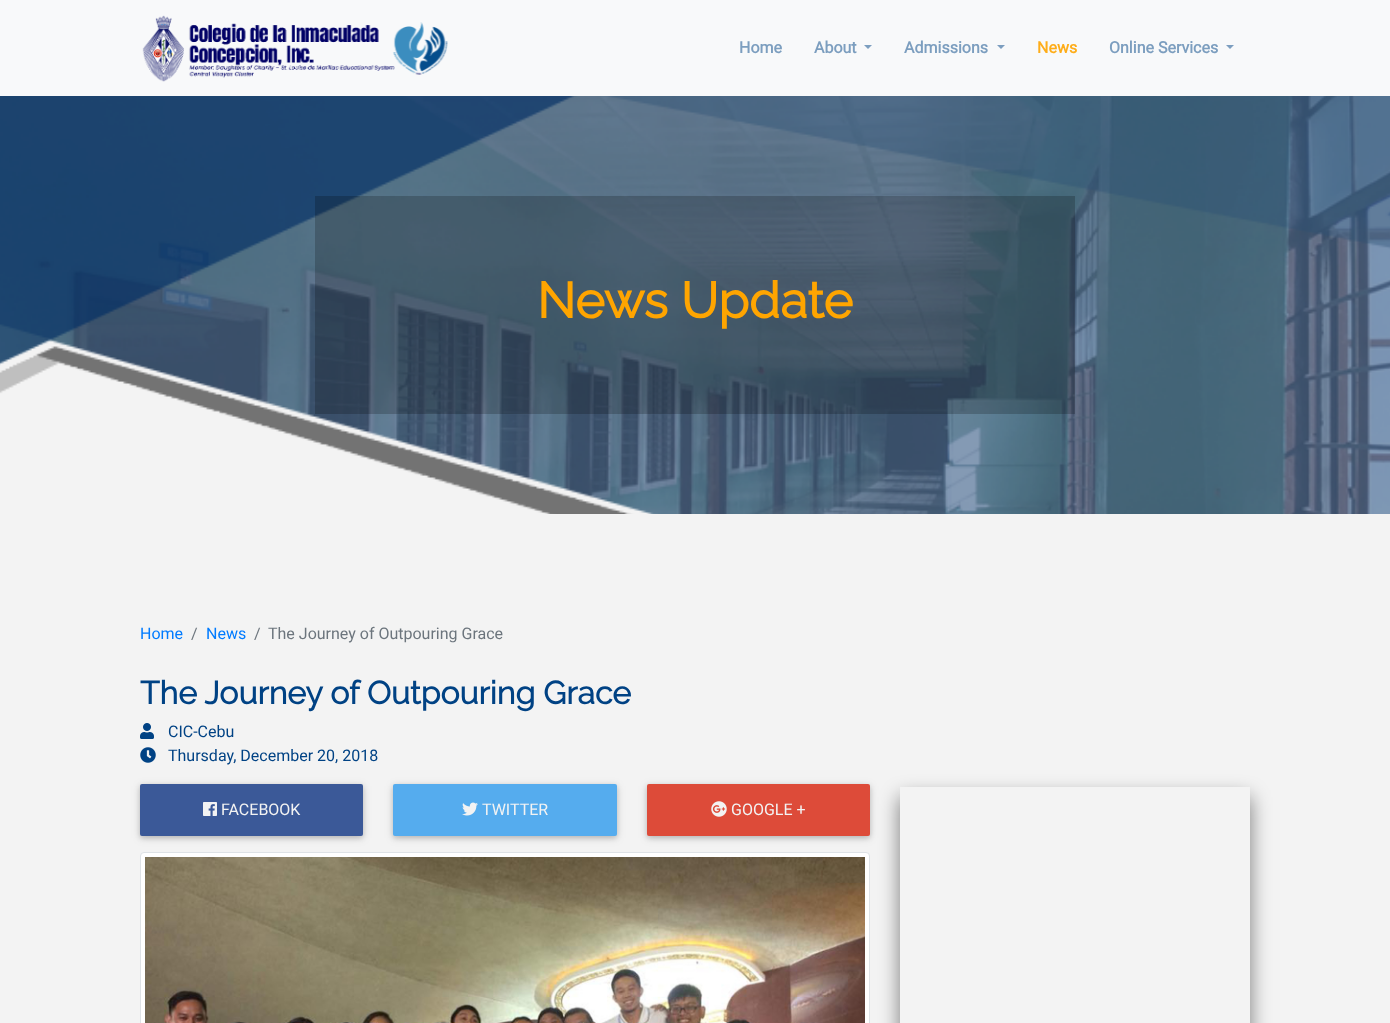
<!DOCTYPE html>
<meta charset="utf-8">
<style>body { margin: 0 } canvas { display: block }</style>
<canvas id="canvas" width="1390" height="1023"></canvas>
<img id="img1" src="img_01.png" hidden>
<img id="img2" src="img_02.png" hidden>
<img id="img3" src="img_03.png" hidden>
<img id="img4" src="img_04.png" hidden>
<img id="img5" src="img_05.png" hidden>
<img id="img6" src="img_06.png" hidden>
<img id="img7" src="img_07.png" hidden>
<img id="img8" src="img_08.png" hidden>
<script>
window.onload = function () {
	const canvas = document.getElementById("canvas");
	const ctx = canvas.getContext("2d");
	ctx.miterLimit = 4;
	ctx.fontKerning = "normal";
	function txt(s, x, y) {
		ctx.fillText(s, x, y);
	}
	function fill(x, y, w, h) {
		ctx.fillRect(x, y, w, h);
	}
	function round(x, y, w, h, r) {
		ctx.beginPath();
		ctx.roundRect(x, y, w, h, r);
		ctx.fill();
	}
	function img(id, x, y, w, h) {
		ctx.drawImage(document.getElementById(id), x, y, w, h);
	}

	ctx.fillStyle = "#F3F3F3";
	fill(0, 0, 1390, 1023);
	ctx.fillStyle = "#F8F9FA";
	fill(0, 0, 1390, 96);
	img("img1", 142, 15, 306, 67);
	ctx.fillStyle = "#7C9EBF";
	ctx.beginPath();
	ctx.moveTo(864, 45);
	ctx.lineTo(872, 45);
	ctx.lineTo(868, 49);
	ctx.closePath();
	ctx.fill();
	ctx.beginPath();
	ctx.moveTo(997, 45);
	ctx.lineTo(1005, 45);
	ctx.lineTo(1001, 49);
	ctx.closePath();
	ctx.fill();
	ctx.beginPath();
	ctx.moveTo(1226, 45);
	ctx.lineTo(1234, 45);
	ctx.lineTo(1230, 49);
	ctx.closePath();
	ctx.fill();
	img("img2", 0, 96, 1390, 418);
	ctx.fillStyle = "rgba(0, 0, 0, 0.2)";
	fill(315, 196, 760, 218);
	img("img3", 140, 723, 14, 16);
	img("img4", 140, 747, 16, 16);
	ctx.fillStyle = "rgba(0, 0, 0, 0.12)";
	ctx.filter = "blur(5px)";
	ctx.beginPath();
	ctx.roundRect(140, 786, 223, 52, 2);
	ctx.fill();
	ctx.filter = "none";
	ctx.fillStyle = "rgba(0, 0, 0, 0.16)";
	ctx.filter = "blur(2.5px)";
	ctx.beginPath();
	ctx.roundRect(140, 786, 223, 52, 2);
	ctx.fill();
	ctx.filter = "none";
	ctx.fillStyle = "#3B5998";
	round(140, 784, 223, 52, 2);
	img("img5", 203, 802, 14, 14);
	ctx.fillStyle = "rgba(0, 0, 0, 0.12)";
	ctx.filter = "blur(5px)";
	ctx.beginPath();
	ctx.roundRect(393, 786, 224, 52, 2);
	ctx.fill();
	ctx.filter = "none";
	ctx.fillStyle = "rgba(0, 0, 0, 0.16)";
	ctx.filter = "blur(2.5px)";
	ctx.beginPath();
	ctx.roundRect(393, 786, 224, 52, 2);
	ctx.fill();
	ctx.filter = "none";
	ctx.fillStyle = "#55ACEE";
	round(393, 784, 224, 52, 2);
	img("img6", 462, 802, 16, 14);
	ctx.fillStyle = "rgba(0, 0, 0, 0.12)";
	ctx.filter = "blur(5px)";
	ctx.beginPath();
	ctx.roundRect(647, 786, 223, 52, 2);
	ctx.fill();
	ctx.filter = "none";
	ctx.fillStyle = "rgba(0, 0, 0, 0.16)";
	ctx.filter = "blur(2.5px)";
	ctx.beginPath();
	ctx.roundRect(647, 786, 223, 52, 2);
	ctx.fill();
	ctx.filter = "none";
	ctx.fillStyle = "#DD4B39";
	round(647, 784, 223, 52, 2);
	img("img7", 711, 801, 16, 16);
	ctx.fillStyle = "#FFFFFF";
	ctx.beginPath();
	ctx.roundRect(140.5, 852.5, 729, 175, 3.5);
	ctx.fill();
	ctx.strokeStyle = "#DEE2E6";
	ctx.stroke();
	img("img8", 145, 857, 720, 166);
	ctx.save();
	ctx.beginPath();
	ctx.moveTo(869, 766);
	ctx.lineTo(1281, 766);
	ctx.lineTo(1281, 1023);
	ctx.lineTo(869, 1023);
	ctx.closePath();
	ctx.moveTo(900, 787);
	ctx.lineTo(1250, 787);
	ctx.lineTo(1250, 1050);
	ctx.lineTo(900, 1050);
	ctx.closePath();
	ctx.clip("evenodd");
	ctx.fillStyle = "rgba(0, 0, 0, 0.5)";
	ctx.filter = "blur(10px)";
	ctx.beginPath();
	ctx.rect(900, 797, 350, 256);
	ctx.fill();
	ctx.filter = "none";
	ctx.restore();
	ctx.font = "bold 16px Roboto";
	ctx.fillStyle = "#7C9EBF";
	txt("Home", 739, 53);
	txt("About", 814, 53);
	txt("Admissions", 904, 53);
	ctx.fillStyle = "#FEAD19";
	txt("News", 1037, 53);
	ctx.fillStyle = "#7C9EBF";
	txt("Online Services", 1109, 53);
	ctx.font = "bold 50px Raleway";
	ctx.fillStyle = "#FFA500";
	txt("News Update", 537, 318);
	ctx.font = "16px Roboto";
	ctx.fillStyle = "#007BFF";
	txt("Home", 140, 639);
	ctx.fillStyle = "#6C757D";
	txt("/", 191, 639);
	ctx.fillStyle = "#007BFF";
	txt("News", 206, 639);
	ctx.fillStyle = "#6C757D";
	txt("/", 254, 639);
	txt("The Journey of Outpouring Grace", 268, 639);
	ctx.font = "bold 32px Raleway";
	ctx.fillStyle = "#004284";
	txt("The Journey of Outpouring Grace", 140, 704);
	ctx.font = "16px Roboto";
	txt("CIC-Cebu", 168, 737);
	txt("Thursday, December 20, 2018", 168, 761);
	ctx.fillStyle = "#F3F3F3";
	txt("FACEBOOK", 221, 815);
	txt("TWITTER", 482, 815);
	txt("GOOGLE +", 731, 815);
};
</script>
